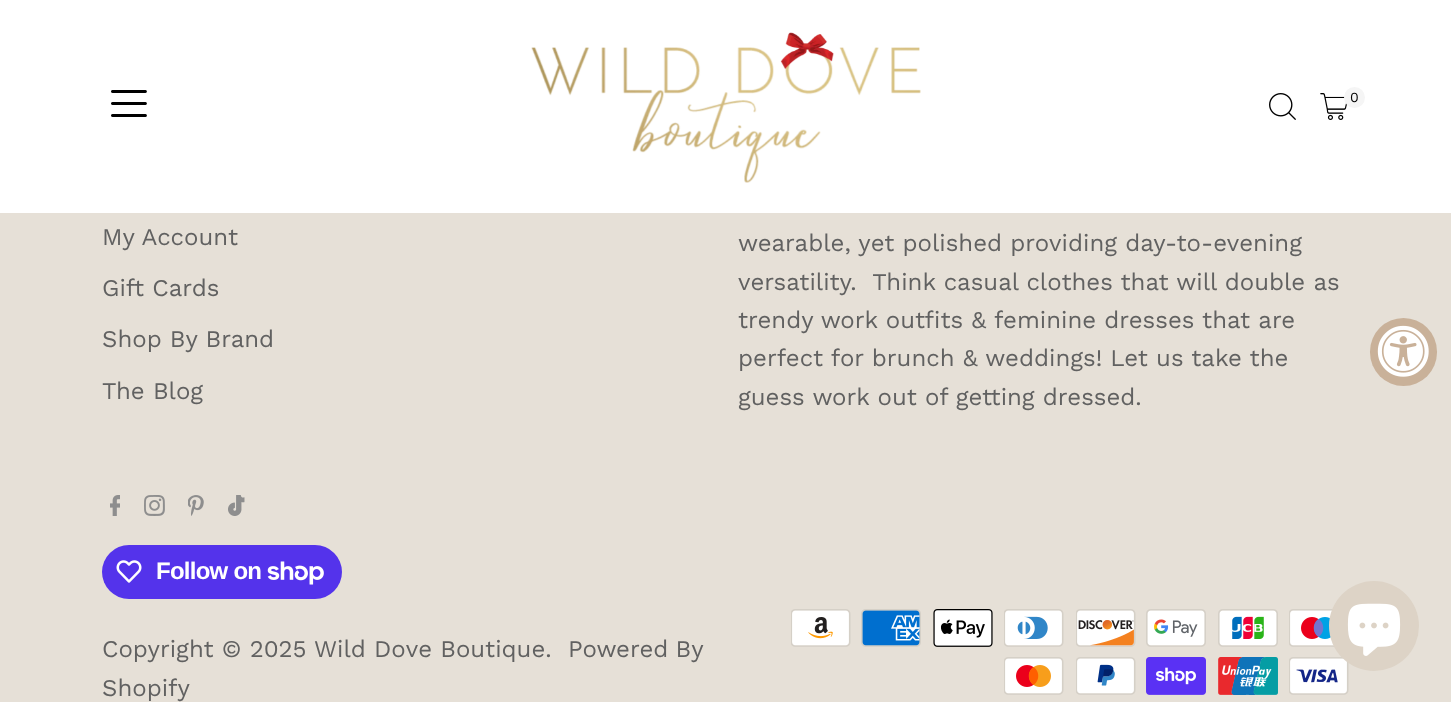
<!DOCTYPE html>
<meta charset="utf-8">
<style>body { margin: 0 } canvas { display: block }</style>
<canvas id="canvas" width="1451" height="702"></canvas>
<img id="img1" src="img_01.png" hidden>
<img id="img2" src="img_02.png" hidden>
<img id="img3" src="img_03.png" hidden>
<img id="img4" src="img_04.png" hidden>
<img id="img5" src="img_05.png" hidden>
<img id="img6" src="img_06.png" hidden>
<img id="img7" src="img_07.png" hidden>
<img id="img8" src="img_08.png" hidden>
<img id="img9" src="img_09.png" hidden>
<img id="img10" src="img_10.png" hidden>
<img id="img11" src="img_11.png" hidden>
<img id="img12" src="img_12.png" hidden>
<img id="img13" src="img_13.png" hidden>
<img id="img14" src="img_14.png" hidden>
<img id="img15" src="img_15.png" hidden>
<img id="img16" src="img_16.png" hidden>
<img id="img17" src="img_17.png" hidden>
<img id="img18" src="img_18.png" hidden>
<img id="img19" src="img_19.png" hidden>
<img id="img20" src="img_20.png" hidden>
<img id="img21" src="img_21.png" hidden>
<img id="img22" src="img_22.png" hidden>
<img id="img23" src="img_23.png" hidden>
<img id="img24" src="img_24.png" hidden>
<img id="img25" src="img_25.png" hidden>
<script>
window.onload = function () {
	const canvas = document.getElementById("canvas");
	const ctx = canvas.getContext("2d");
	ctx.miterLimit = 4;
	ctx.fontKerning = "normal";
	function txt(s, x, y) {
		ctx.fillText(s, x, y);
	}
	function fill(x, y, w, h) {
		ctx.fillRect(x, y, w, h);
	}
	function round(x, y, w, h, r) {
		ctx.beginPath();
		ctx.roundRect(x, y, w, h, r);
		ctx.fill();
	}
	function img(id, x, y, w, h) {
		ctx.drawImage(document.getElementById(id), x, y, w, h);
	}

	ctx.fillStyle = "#E6E0D7";
	fill(0, 0, 1451, 702);
	ctx.fillStyle = "#FFFFFF";
	fill(0, 0, 1451, 213);
	img("img1", 111, 90, 36, 27);
	img("img2", 531, 32, 390, 151);
	img("img3", 1269, 93, 27, 27);
	img("img4", 1320, 93, 27, 27);
	ctx.fillStyle = "#F5F5F5";
	ctx.beginPath();
	ctx.arc(1354.5, 97.5, 10.5, 0, Math.PI * 2);
	ctx.fill();
	img("img5", 110, 495, 10, 21);
	img("img6", 144, 495, 21, 21);
	img("img7", 188, 495, 16, 21);
	img("img8", 228, 495, 17, 21);
	ctx.fillStyle = "#5433EB";
	round(102, 545, 240, 54, 27);
	img("img9", 116, 560, 26, 23);
	img("img10", 267, 561, 57, 24);
	img("img11", 791, 609, 60, 38);
	img("img12", 861, 609, 60, 38);
	img("img13", 933, 609, 60, 38);
	img("img14", 1004, 609, 60, 38);
	img("img15", 1076, 609, 60, 38);
	img("img16", 1146, 609, 60, 38);
	img("img17", 1218, 609, 60, 38);
	img("img18", 1289, 609, 46, 38);
	img("img19", 1004, 657, 60, 38);
	img("img20", 1076, 657, 60, 38);
	img("img21", 1146, 657, 60, 38);
	img("img22", 1218, 657, 60, 38);
	img("img23", 1289, 657, 60, 38);
	ctx.fillStyle = "#C9B199";
	round(1370, 318, 67, 68, 33.5);
	img("img24", 1377, 325, 52, 52);
	ctx.fillStyle = "#DDD3C6";
	ctx.beginPath();
	ctx.arc(1374, 626, 45, 0, Math.PI * 2);
	ctx.fill();
	img("img25", 1347, 603, 54, 53);
	ctx.font = "14px Work Sans";
	ctx.fillStyle = "#000000";
	txt("0", 1350, 102);
	ctx.font = "24px Work Sans";
	ctx.fillStyle = "#616161";
	txt("My Account", 102, 245);
	txt("Gift Cards", 102, 296);
	txt("Shop By Brand", 102, 347);
	txt("The Blog", 102, 399);
	txt("wearable, yet polished providing day-to-evening", 738, 251);
	txt("versatility.  Think casual clothes that will double as", 738, 290);
	txt("trendy work outfits & feminine dresses that are", 738, 328);
	txt("perfect for brunch & weddings! Let us take the", 738, 366);
	txt("guess work out of getting dressed.", 738, 405);
	ctx.letterSpacing = "-0.75px";
	ctx.font = "bold 24px Liberation Sans";
	ctx.fillStyle = "#FFFFFF";
	txt("Follow on", 156, 579);
	ctx.letterSpacing = "0px";
	ctx.font = "24px Work Sans";
	ctx.fillStyle = "#616161";
	txt("Copyright © 2025", 102, 657);
	txt("Wild Dove Boutique.", 314, 657);
	ctx.wordSpacing = "-1px";
	txt("Powered By", 568, 657);
	ctx.wordSpacing = "0px";
	txt("Shopify", 102, 696);
};
</script>
